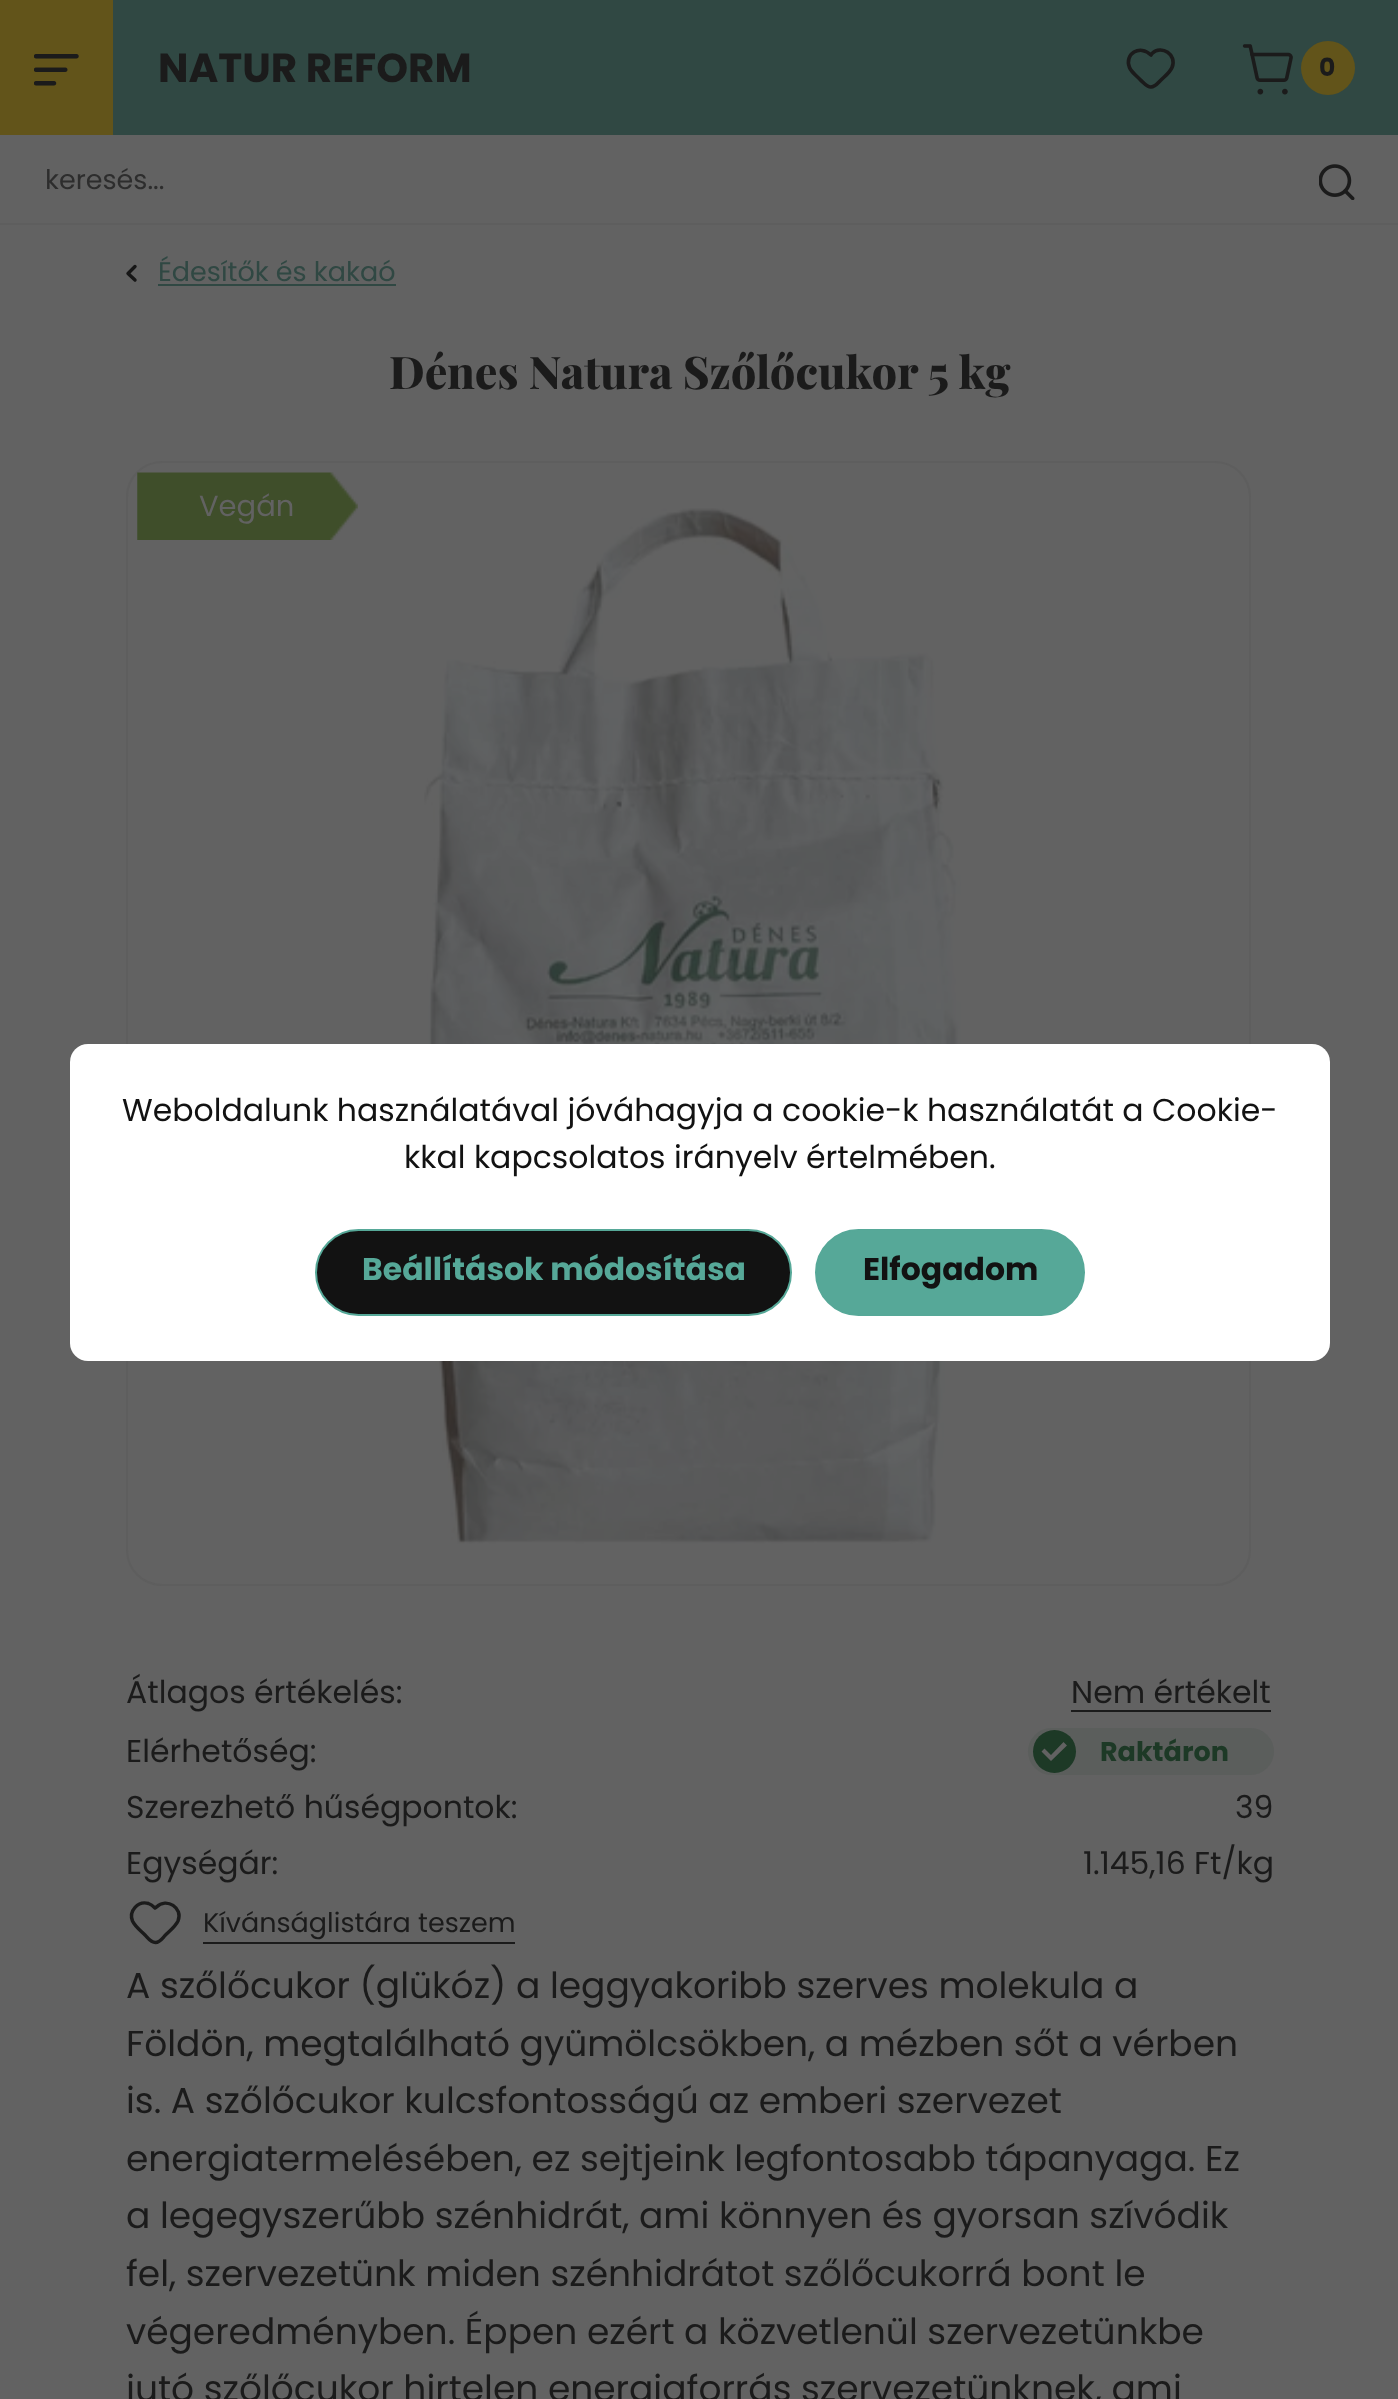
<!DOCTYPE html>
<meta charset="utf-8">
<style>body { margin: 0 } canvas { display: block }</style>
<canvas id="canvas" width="1398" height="2399"></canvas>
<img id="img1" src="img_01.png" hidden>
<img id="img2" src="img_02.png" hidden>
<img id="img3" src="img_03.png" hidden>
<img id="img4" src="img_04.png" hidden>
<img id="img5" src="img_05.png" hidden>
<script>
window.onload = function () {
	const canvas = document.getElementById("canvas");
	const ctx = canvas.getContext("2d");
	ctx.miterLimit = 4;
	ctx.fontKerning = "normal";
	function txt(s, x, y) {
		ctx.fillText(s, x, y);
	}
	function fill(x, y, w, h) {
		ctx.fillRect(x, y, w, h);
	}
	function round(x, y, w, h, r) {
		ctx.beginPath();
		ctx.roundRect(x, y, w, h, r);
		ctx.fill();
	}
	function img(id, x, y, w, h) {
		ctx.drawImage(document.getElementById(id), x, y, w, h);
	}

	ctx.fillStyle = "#626262";
	fill(0, 0, 1398, 2399);
	ctx.fillStyle = "#304843";
	fill(113, 0, 1285, 135);
	ctx.fillStyle = "#62541A";
	fill(0, 0, 113, 135);
	img("img1", 34, 54, 45, 32);
	ctx.beginPath();
	ctx.moveTo(1152, 53.5);
	ctx.lineTo(1151, 55);
	ctx.bezierCurveTo(1140, 44, 1124, 54, 1129.5, 67.5);
	ctx.bezierCurveTo(1131.5, 72.5, 1137.5, 76.5, 1141, 80.5);
	ctx.bezierCurveTo(1144, 83, 1146.5, 87, 1151, 87);
	ctx.bezierCurveTo(1155, 87, 1158, 83, 1160.5, 80.5);
	ctx.bezierCurveTo(1164.5, 76.5, 1170, 72.5, 1172, 67.5);
	ctx.bezierCurveTo(1177.5, 54.5, 1161.5, 44.5, 1152, 53.5);
	ctx.closePath();
	ctx.strokeStyle = "#1B1B1B";
	ctx.lineWidth = 3.6;
	ctx.lineCap = "round";
	ctx.lineJoin = "round";
	ctx.stroke();
	img("img2", 1242, 44, 51, 51);
	ctx.beginPath();
	ctx.arc(1328, 68, 27, 0, Math.PI * 2);
	ctx.fill();
	ctx.fillStyle = "#5E5E5E";
	fill(0, 223, 1398, 2);
	img("img3", 1319, 164, 36, 36);
	ctx.beginPath();
	ctx.moveTo(135, 280);
	ctx.lineTo(128, 273.5);
	ctx.lineTo(135, 266.5);
	ctx.strokeStyle = "#161616";
	ctx.lineWidth = 3.4;
	ctx.stroke();
	ctx.fillStyle = "#304843";
	fill(158, 284, 238, 2);
	ctx.beginPath();
	ctx.roundRect(127, 462, 1123, 1123, 35);
	ctx.strokeStyle = "#5E5E5E";
	ctx.lineWidth = 2;
	ctx.lineJoin = "miter";
	ctx.stroke();
	img("img4", 424, 508, 537, 1036);
	img("img5", 137, 472, 221, 68);
	ctx.fillStyle = "#1B1B1B";
	fill(1071, 1710, 200, 2);
	ctx.fillStyle = "#5B5E5C";
	round(1028, 1728, 246, 47, 23.5);
	ctx.fillStyle = "#1D3926";
	ctx.beginPath();
	ctx.arc(1054.5, 1751.5, 21.5, 0, Math.PI * 2);
	ctx.fill();
	ctx.fillStyle = "#626262";
	ctx.beginPath();
	ctx.moveTo(1051, 1755);
	ctx.lineTo(1044.5, 1748.5);
	ctx.lineTo(1041.5, 1751.5);
	ctx.lineTo(1051, 1761);
	ctx.lineTo(1067, 1745.5);
	ctx.lineTo(1063.5, 1742);
	ctx.closePath();
	ctx.fill();
	ctx.beginPath();
	ctx.moveTo(156.5, 1907);
	ctx.lineTo(155, 1908);
	ctx.bezierCurveTo(153, 1906, 151.5, 1904.5, 148.5, 1903.5);
	ctx.bezierCurveTo(138, 1900.5, 128.5, 1911, 132.5, 1921);
	ctx.bezierCurveTo(135, 1926.5, 141, 1931, 145, 1935);
	ctx.bezierCurveTo(148, 1938, 150.5, 1942.5, 155.5, 1942.5);
	ctx.bezierCurveTo(160, 1942.5, 162.5, 1938, 165.5, 1935);
	ctx.bezierCurveTo(169.5, 1931, 175.5, 1926.5, 178, 1921);
	ctx.bezierCurveTo(183.5, 1908, 166.5, 1897, 156.5, 1907);
	ctx.closePath();
	ctx.strokeStyle = "#1B1B1B";
	ctx.lineWidth = 3.4;
	ctx.lineJoin = "round";
	ctx.stroke();
	ctx.fillStyle = "#1B1B1B";
	fill(203, 1942, 312, 2);
	ctx.fillStyle = "#FFFFFF";
	round(70, 1044, 1260, 317, 18);
	ctx.fillStyle = "#121212";
	ctx.beginPath();
	ctx.roundRect(316, 1230, 475, 85, 42.5);
	ctx.fill();
	ctx.strokeStyle = "#56A898";
	ctx.lineWidth = 2;
	ctx.lineJoin = "miter";
	ctx.stroke();
	ctx.fillStyle = "#56A898";
	ctx.beginPath();
	ctx.roundRect(816, 1230, 268, 85, 42.5);
	ctx.fill();
	ctx.stroke();
	ctx.font = "bold 40.5px Poppins";
	ctx.fillStyle = "#1B1B1B";
	txt("NATUR REFORM", 158, 82);
	ctx.font = "bold 25px Poppins";
	txt("0", 1319, 76);
	ctx.font = "27px Poppins";
	ctx.fillStyle = "#2D2D2D";
	txt("keresés...", 45, 189);
	ctx.fillStyle = "#304843";
	txt("Édesítők és kakaó", 158, 281);
	ctx.font = "800 45px Playfair Display";
	ctx.fillStyle = "#1B1B1B";
	txt("Dénes Natura Szőlőcukor 5 kg", 389, 389);
	ctx.font = "29px Poppins";
	ctx.fillStyle = "#626262";
	txt("Vegán", 199, 516);
	ctx.font = "31.5px Poppins";
	ctx.fillStyle = "#1B1B1B";
	txt("Átlagos értékelés:", 126, 1703);
	txt("Nem értékelt", 1071, 1703);
	txt("Elérhetőség:", 126, 1762);
	ctx.font = "bold 27px Poppins";
	ctx.fillStyle = "#1D3926";
	txt("Raktáron", 1100, 1761);
	ctx.font = "31.5px Poppins";
	ctx.fillStyle = "#1B1B1B";
	txt("Szerezhető hűségpontok:", 126, 1818);
	txt("39", 1235, 1818);
	txt("Egységár:", 126, 1874);
	txt("1.145,16 Ft/kg", 1083, 1874);
	ctx.font = "27px Poppins";
	txt("Kívánságlistára teszem", 203, 1932);
	ctx.font = "36px Poppins";
	txt("A szőlőcukor (glükóz) a leggyakoribb szerves molekula a", 126, 1998);
	txt("Földön, megtalálható gyümölcsökben, a mézben sőt a vérben", 126, 2056);
	txt("is. A szőlőcukor kulcsfontosságú az emberi szervezet", 126, 2113);
	txt("energiatermelésében, ez sejtjeink legfontosabb tápanyaga. Ez", 126, 2171);
	txt("a legegyszerűbb szénhidrát, ami könnyen és gyorsan szívódik", 126, 2228);
	txt("fel, szervezetünk miden szénhidrátot szőlőcukorrá bont le", 126, 2286);
	txt("végeredményben. Éppen ezért a közvetlenül szervezetünkbe", 126, 2344);
	txt("jutó szőlőcukor hirtelen energiaforrás szervezetünknek, ami", 126, 2401);
	ctx.font = "31.5px Poppins";
	ctx.fillStyle = "#121212";
	txt("Weboldalunk használatával jóváhagyja a cookie-k használatát a Cookie-", 122, 1121);
	txt("kkal kapcsolatos irányelv értelmében.", 404, 1168);
	ctx.font = "bold 31.5px Poppins";
	ctx.fillStyle = "#56A898";
	txt("Beállítások módosítása", 362, 1280);
	ctx.fillStyle = "#121212";
	txt("Elfogadom", 863, 1280);
};
</script>
